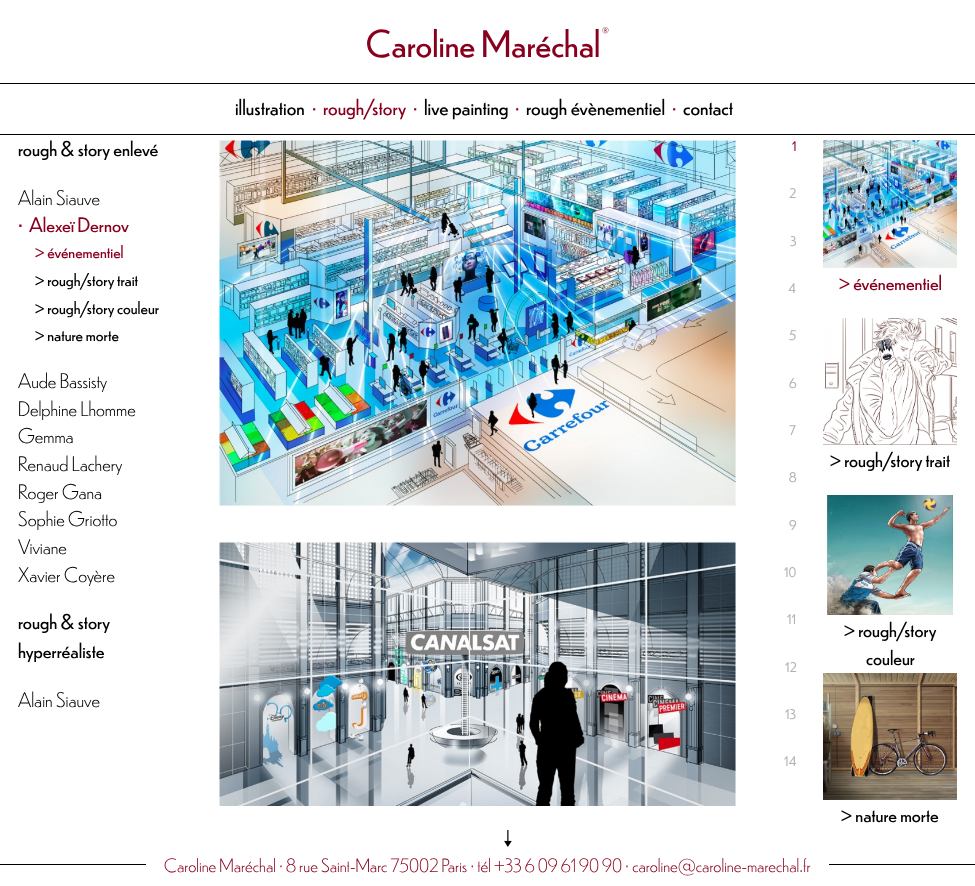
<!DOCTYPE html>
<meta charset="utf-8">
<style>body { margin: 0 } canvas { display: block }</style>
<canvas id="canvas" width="975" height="886"></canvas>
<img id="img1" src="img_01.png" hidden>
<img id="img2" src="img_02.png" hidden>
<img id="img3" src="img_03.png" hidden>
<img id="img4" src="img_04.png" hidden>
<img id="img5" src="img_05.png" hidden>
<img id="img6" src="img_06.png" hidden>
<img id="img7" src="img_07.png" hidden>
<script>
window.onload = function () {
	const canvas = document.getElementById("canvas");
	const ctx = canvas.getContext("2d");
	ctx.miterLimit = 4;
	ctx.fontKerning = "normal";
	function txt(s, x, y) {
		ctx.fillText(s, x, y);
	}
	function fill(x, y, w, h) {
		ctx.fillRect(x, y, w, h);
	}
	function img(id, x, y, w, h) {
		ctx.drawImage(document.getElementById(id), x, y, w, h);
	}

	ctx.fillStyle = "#FFFFFF";
	fill(0, 0, 975, 886);
	ctx.fillStyle = "#000000";
	fill(0, 83, 975, 1);
	fill(0, 134, 975, 1);
	img("img1", 219, 140, 517, 366);
	img("img2", 219, 541, 517, 265);
	img("img3", 823, 140, 134, 128);
	img("img4", 823, 318, 134, 127);
	img("img5", 827, 495, 126, 120);
	img("img6", 823, 673, 134, 127);
	img("img7", 504, 830, 8, 17);
	fill(0, 864, 975, 1);
	ctx.fillStyle = "#FFFFFF";
	fill(146, 864, 683, 1);
	ctx.font = "36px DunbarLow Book";
	ctx.fillStyle = "#88001E";
	txt("Caroline Maréchal", 366, 57);
	ctx.font = "13px DunbarLow Book";
	txt("®", 602, 37);
	ctx.font = "20.75px DunbarLow Book";
	ctx.fillStyle = "#000000";
	txt("illustration", 235, 115);
	ctx.font = "18px DunbarLow Book";
	ctx.fillStyle = "#88001E";
	txt("•", 312, 115);
	ctx.font = "20.75px DunbarLow Book";
	txt("rough/story", 323, 115);
	ctx.font = "18px DunbarLow Book";
	txt("•", 413, 115);
	ctx.font = "20.75px DunbarLow Book";
	ctx.fillStyle = "#000000";
	txt("live painting", 424, 115);
	ctx.font = "18px DunbarLow Book";
	ctx.fillStyle = "#88001E";
	txt("•", 515, 115);
	ctx.font = "20.75px DunbarLow Book";
	ctx.fillStyle = "#000000";
	txt("rough évènementiel", 526, 115);
	ctx.font = "18px DunbarLow Book";
	ctx.fillStyle = "#88001E";
	txt("•", 672, 115);
	ctx.font = "20.75px DunbarLow Book";
	ctx.fillStyle = "#000000";
	txt("contact", 683, 115);
	ctx.font = "19.75px DunbarLow Book";
	txt("rough & story enlevé", 18, 156);
	ctx.font = "300 19.75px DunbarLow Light";
	txt("Alain Siauve", 18, 205);
	ctx.font = "19.75px DunbarLow Book";
	ctx.fillStyle = "#88001E";
	txt("•", 18, 232);
	txt("Alexeï Dernov", 29, 232);
	ctx.font = "16.75px DunbarLow Book";
	txt("> événementiel", 35, 258);
	ctx.fillStyle = "#000000";
	txt("> rough/story trait", 35, 286);
	txt("> rough/story couleur", 35, 314);
	txt("> nature morte", 35, 341);
	ctx.font = "300 19.75px DunbarLow Light";
	txt("Aude Bassisty", 18, 388);
	txt("Delphine Lhomme", 18, 416);
	txt("Gemma", 18, 443);
	txt("Renaud Lachery", 18, 471);
	txt("Roger Gana", 18, 499);
	txt("Sophie Griotto", 18, 526);
	txt("Viviane", 18, 554);
	txt("Xavier Coyère", 18, 582);
	ctx.font = "19.75px DunbarLow Book";
	txt("rough & story", 18, 629);
	txt("hyperréaliste", 18, 658);
	ctx.font = "300 19.75px DunbarLow Light";
	txt("Alain Siauve", 18, 707);
	ctx.font = "13px DunbarLow Book";
	ctx.fillStyle = "#88001E";
	txt("1", 792, 151);
	ctx.fillStyle = "#B3B3B3";
	txt("2", 789, 198);
	txt("3", 790, 246);
	txt("4", 788, 293);
	txt("5", 789, 340);
	txt("6", 789, 388);
	txt("7", 789, 435);
	txt("8", 789, 482);
	txt("9", 789, 530);
	txt("10", 784, 577);
	txt("11", 787, 624);
	txt("12", 785, 672);
	txt("13", 785, 719);
	txt("14", 784, 766);
	ctx.font = "19.5px DunbarLow Book";
	ctx.fillStyle = "#88001E";
	txt("> événementiel", 839, 290);
	ctx.fillStyle = "#000000";
	txt("> rough/story trait", 830, 467);
	txt("> rough/story", 844, 637);
	txt("couleur", 866, 665);
	txt("> nature morte", 841, 822);
	ctx.font = "300 18px DunbarLow Light";
	ctx.fillStyle = "#88001E";
	txt("Caroline Maréchal • 8 rue Saint-Marc 75002 Paris • tél +33 6 09 61 90 90 • caroline@caroline-marechal.fr", 164, 872);
};
</script>
